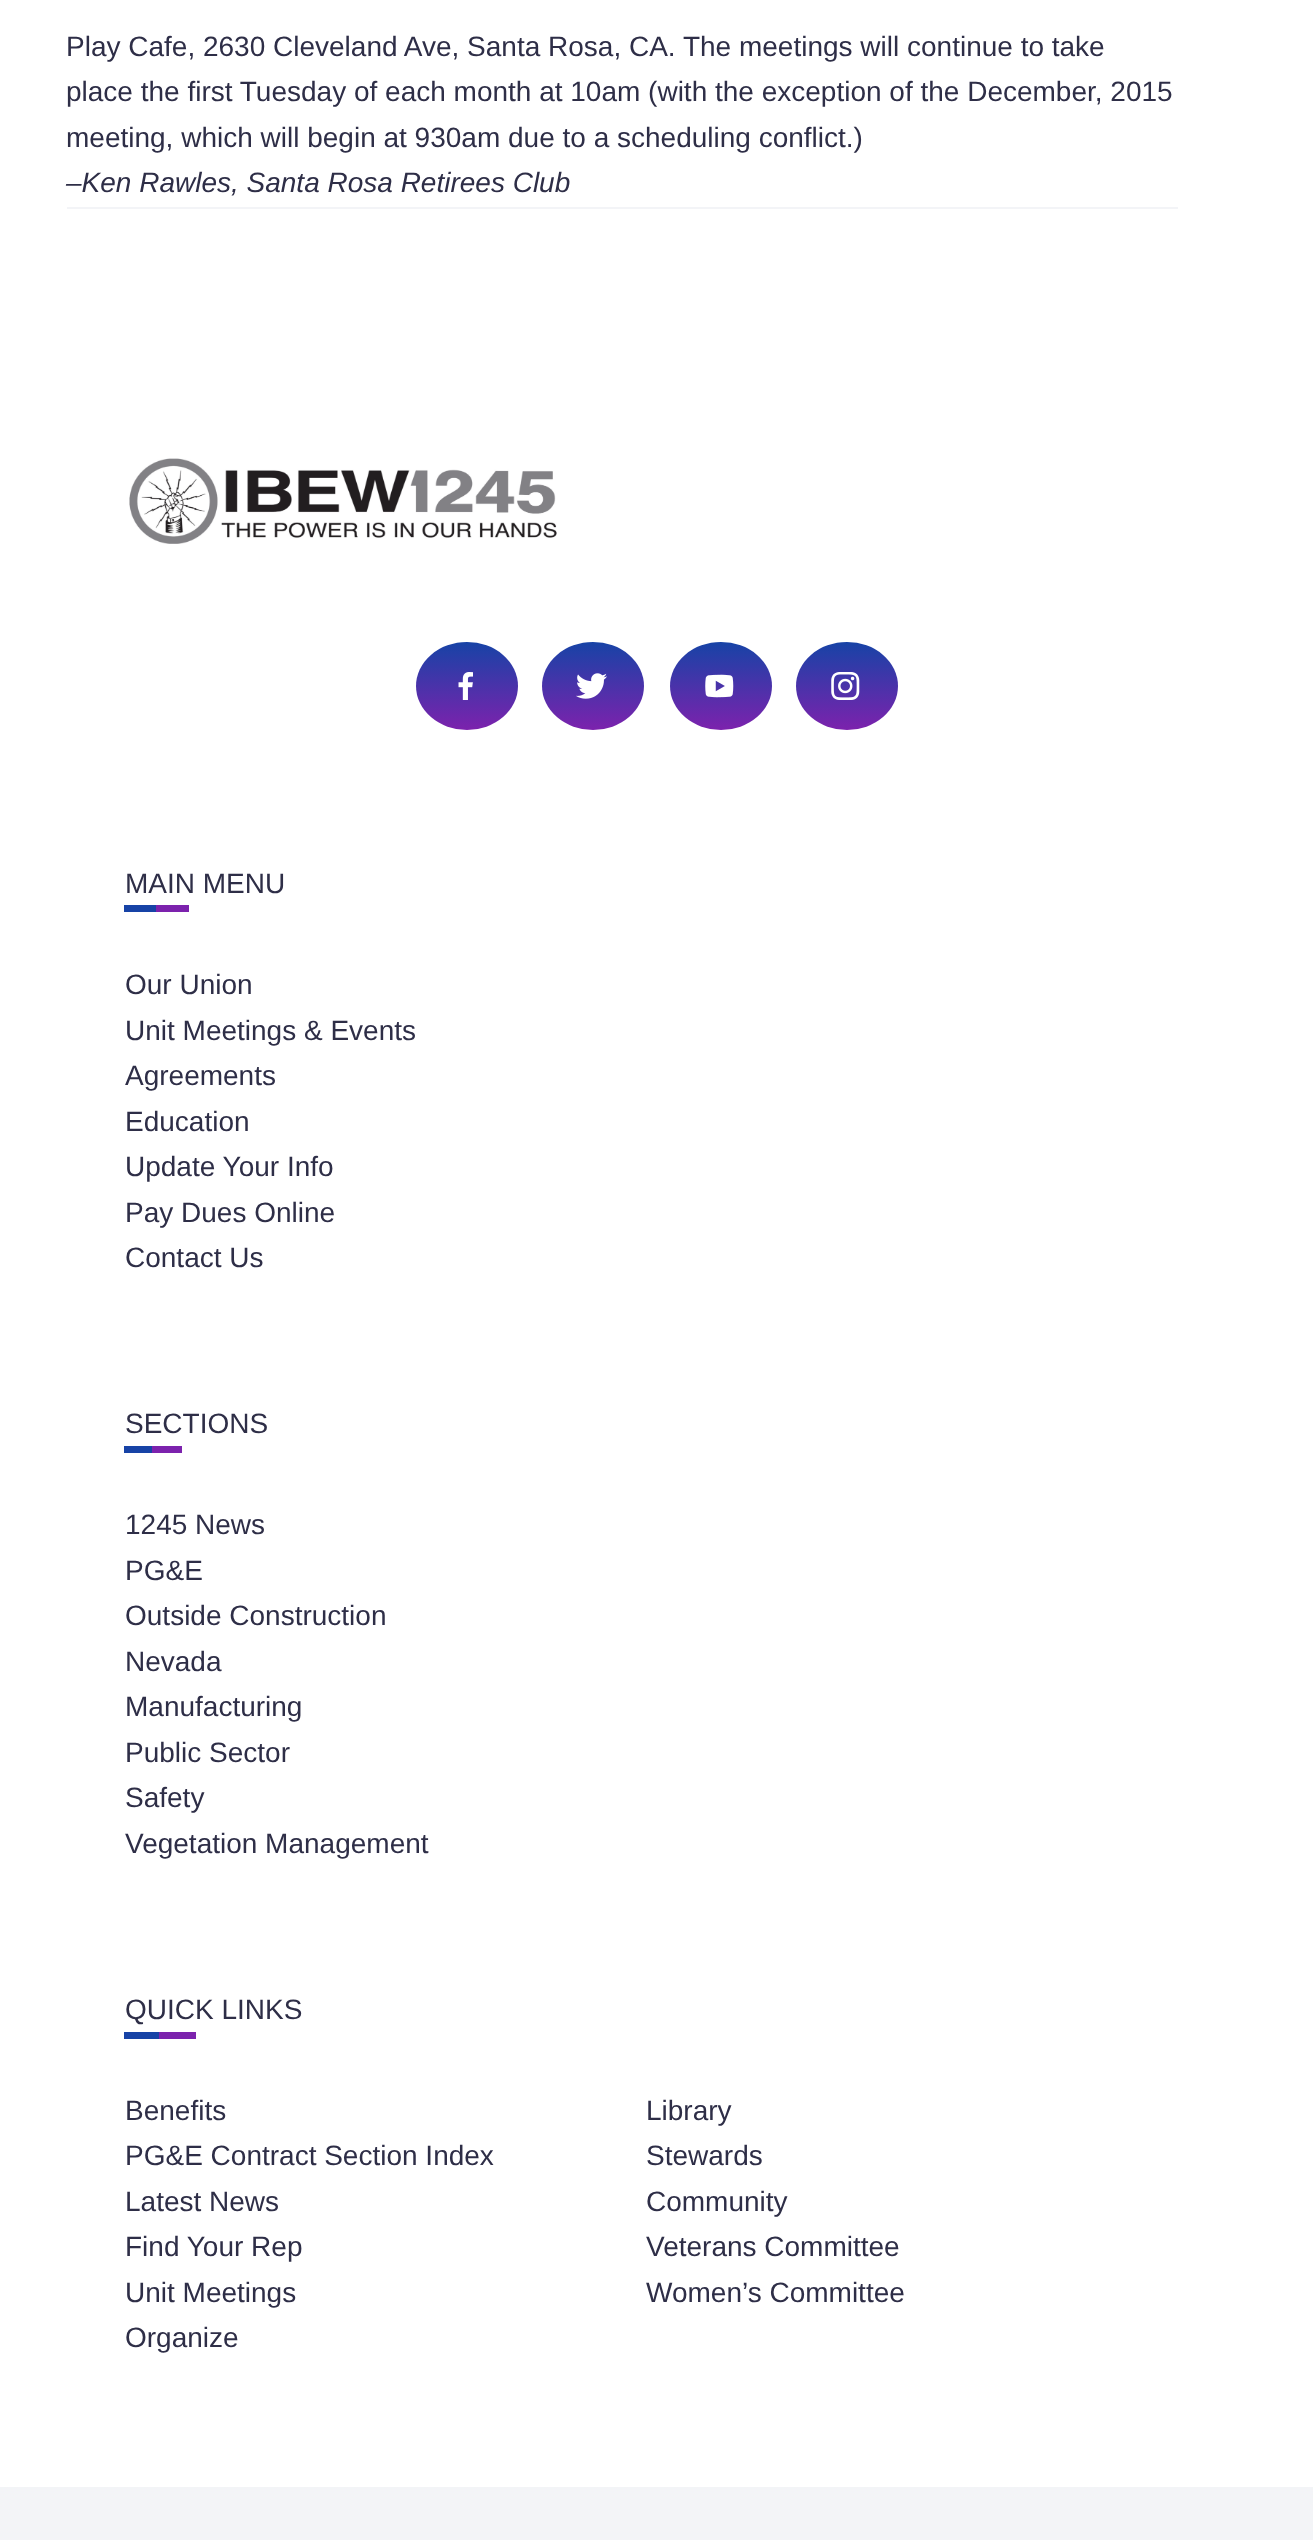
<!DOCTYPE html>
<meta charset="utf-8">
<style>body { margin: 0 } canvas { display: block }</style>
<canvas id="canvas" width="1313" height="2540"></canvas>
<img id="img1" src="img_01.png" hidden>
<img id="img2" src="img_02.png" hidden>
<img id="img3" src="img_03.png" hidden>
<img id="img4" src="img_04.png" hidden>
<img id="img5" src="img_05.png" hidden>
<script>
window.onload = function () {
	const canvas = document.getElementById("canvas");
	const ctx = canvas.getContext("2d");
	ctx.miterLimit = 4;
	ctx.fontKerning = "normal";
	function txt(s, x, y) {
		ctx.fillText(s, x, y);
	}
	function fill(x, y, w, h) {
		ctx.fillRect(x, y, w, h);
	}
	function img(id, x, y, w, h) {
		ctx.drawImage(document.getElementById(id), x, y, w, h);
	}
	let gradient;

	ctx.fillStyle = "#FFFFFF";
	fill(0, 0, 1313, 2540);
	ctx.fillStyle = "#F3F4F7";
	fill(67, 207, 1111, 2);
	img("img1", 129, 458, 428, 86);
	gradient = ctx.createLinearGradient(467, 642, 467, 730);
	gradient.addColorStop(0, "#1743A6");
	gradient.addColorStop(1, "#7C22AD");
	ctx.fillStyle = gradient;
	ctx.beginPath();
	ctx.ellipse(467, 686, 51, 44, 0, 0, Math.PI * 2);
	ctx.fill();
	img("img2", 458, 672, 15, 28);
	gradient = ctx.createLinearGradient(593, 642, 593, 730);
	gradient.addColorStop(0, "#1743A6");
	gradient.addColorStop(1, "#7C22AD");
	ctx.fillStyle = gradient;
	ctx.beginPath();
	ctx.ellipse(593, 686, 51, 44, 0, 0, Math.PI * 2);
	ctx.fill();
	img("img3", 576, 673, 31, 26);
	gradient = ctx.createLinearGradient(721, 642, 721, 730);
	gradient.addColorStop(0, "#1743A6");
	gradient.addColorStop(1, "#7C22AD");
	ctx.fillStyle = gradient;
	ctx.beginPath();
	ctx.ellipse(721, 686, 51, 44, 0, 0, Math.PI * 2);
	ctx.fill();
	img("img4", 705, 674, 29, 24);
	gradient = ctx.createLinearGradient(847, 642, 847, 730);
	gradient.addColorStop(0, "#1743A6");
	gradient.addColorStop(1, "#7C22AD");
	ctx.fillStyle = gradient;
	ctx.beginPath();
	ctx.ellipse(847, 686, 51, 44, 0, 0, Math.PI * 2);
	ctx.fill();
	img("img5", 831, 672, 29, 28);
	ctx.fillStyle = "#1743A6";
	fill(124, 905, 32, 7);
	ctx.fillStyle = "#7C22AD";
	fill(156, 905, 33, 7);
	ctx.fillStyle = "#1743A6";
	fill(124, 1446, 28, 7);
	ctx.fillStyle = "#7C22AD";
	fill(152, 1446, 30, 7);
	ctx.fillStyle = "#1743A6";
	fill(124, 2032, 35, 7);
	ctx.fillStyle = "#7C22AD";
	fill(159, 2032, 37, 7);
	ctx.fillStyle = "#F3F4F7";
	fill(0, 2487, 1313, 53);
	ctx.font = "28px Liberation Sans";
	ctx.fillStyle = "#2E2E47";
	txt("Play Cafe, 2630 Cleveland Ave, Santa Rosa, CA. The meetings will continue to take", 66, 56);
	txt("place the first Tuesday of each month at 10am (with the exception of the December, 2015", 66, 101);
	txt("meeting, which will begin at 930am due to a scheduling conflict.)", 66, 147);
	ctx.font = "italic 28px Liberation Sans";
	txt("–Ken Rawles, Santa Rosa Retirees Club", 66, 192);
	ctx.font = "28px Liberation Sans";
	txt("MAIN MENU", 125, 893);
	txt("Our Union", 125, 994);
	txt("Unit Meetings & Events", 125, 1040);
	txt("Agreements", 125, 1085);
	txt("Education", 125, 1131);
	txt("Update Your Info", 125, 1176);
	txt("Pay Dues Online", 125, 1222);
	txt("Contact Us", 125, 1267);
	txt("SECTIONS", 125, 1433);
	txt("1245 News", 125, 1534);
	txt("PG&E", 125, 1580);
	txt("Outside Construction", 125, 1625);
	txt("Nevada", 125, 1671);
	txt("Manufacturing", 125, 1716);
	txt("Public Sector", 125, 1762);
	txt("Safety", 125, 1807);
	txt("Vegetation Management", 125, 1853);
	txt("QUICK LINKS", 125, 2019);
	txt("Benefits", 125, 2120);
	txt("Library", 646, 2120);
	txt("PG&E Contract Section Index", 125, 2165);
	txt("Stewards", 646, 2165);
	txt("Latest News", 125, 2211);
	txt("Community", 646, 2211);
	txt("Find Your Rep", 125, 2256);
	txt("Veterans Committee", 646, 2256);
	txt("Unit Meetings", 125, 2302);
	txt("Women’s Committee", 646, 2302);
	txt("Organize", 125, 2347);
};
</script>
